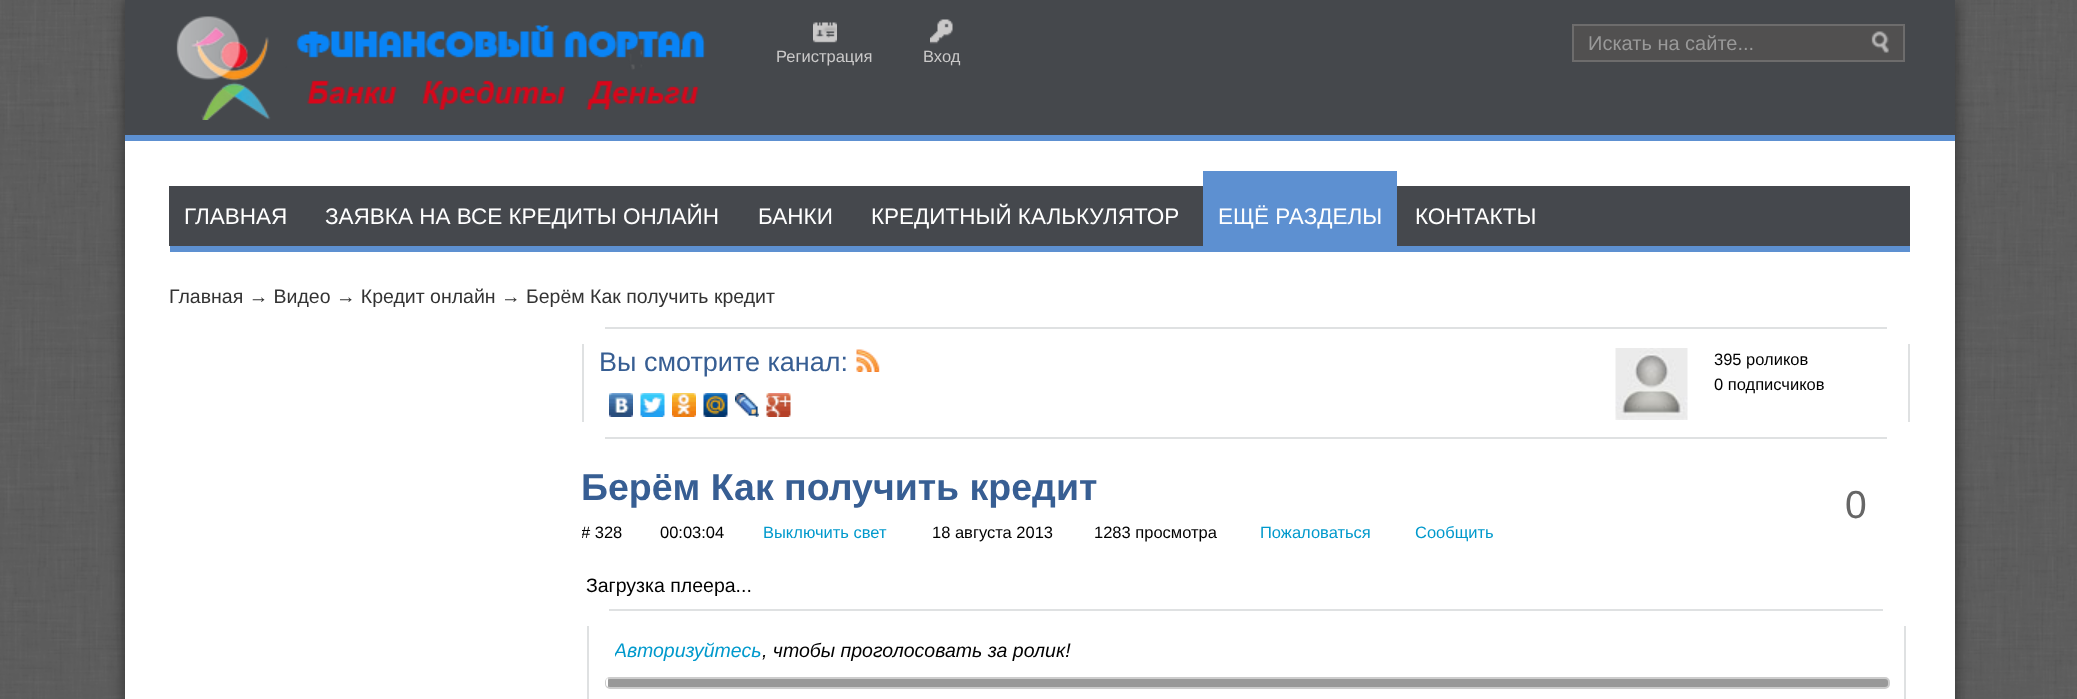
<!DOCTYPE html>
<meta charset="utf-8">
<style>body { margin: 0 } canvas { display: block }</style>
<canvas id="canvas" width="2077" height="699"></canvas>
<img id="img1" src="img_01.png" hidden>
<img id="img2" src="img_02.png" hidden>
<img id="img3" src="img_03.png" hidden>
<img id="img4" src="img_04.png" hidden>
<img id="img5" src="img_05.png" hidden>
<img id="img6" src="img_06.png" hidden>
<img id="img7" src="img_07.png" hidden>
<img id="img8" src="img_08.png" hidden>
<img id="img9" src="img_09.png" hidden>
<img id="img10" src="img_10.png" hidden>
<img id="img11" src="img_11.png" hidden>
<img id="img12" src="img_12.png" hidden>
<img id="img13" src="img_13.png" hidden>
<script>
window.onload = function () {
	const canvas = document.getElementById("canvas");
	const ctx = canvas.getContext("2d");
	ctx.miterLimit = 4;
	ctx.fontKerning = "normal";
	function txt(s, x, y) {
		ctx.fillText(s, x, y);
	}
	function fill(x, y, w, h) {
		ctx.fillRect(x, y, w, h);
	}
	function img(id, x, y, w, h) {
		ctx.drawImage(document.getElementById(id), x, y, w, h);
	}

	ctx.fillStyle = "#FFFFFF";
	fill(0, 0, 2077, 699);
	img("img1", 0, 0, 2077, 699);
	ctx.fillStyle = "rgba(0, 0, 0, 0.5)";
	ctx.filter = "blur(7.5px)";
	ctx.beginPath();
	ctx.rect(125, 0, 1830, 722);
	ctx.fill();
	ctx.filter = "none";
	ctx.fillStyle = "#FFFFFF";
	fill(125, 141, 1830, 558);
	ctx.fillStyle = "#45484C";
	fill(125, 0, 1830, 135);
	ctx.fillStyle = "#5D90D1";
	fill(125, 135, 1830, 6);
	img("img2", 176, 16, 530, 104);
	ctx.fillStyle = "#515050";
	fill(1574, 26, 329, 34);
	img("img3", 1871, 31, 18, 22);
	ctx.strokeStyle = "#6D6C6C";
	ctx.lineWidth = 2;
	ctx.strokeRect(1573, 25, 331, 36);
	img("img4", 813, 22, 24, 21);
	img("img5", 930, 19, 23, 25);
	ctx.fillStyle = "#45484D";
	fill(169, 186, 1741, 60);
	ctx.fillStyle = "#5D90D1";
	fill(170, 246, 1740, 6);
	fill(1203, 171, 194, 75);
	ctx.fillStyle = "#DFE1E2";
	fill(605, 327, 1282, 2);
	fill(1908, 344, 2, 78);
	fill(582, 344, 2, 78);
	img("img6", 856, 349, 24, 23);
	img("img7", 609, 393, 24, 24);
	img("img8", 640, 393, 25, 24);
	img("img9", 672, 393, 24, 24);
	img("img10", 703, 393, 25, 24);
	img("img11", 735, 393, 24, 24);
	img("img12", 766, 393, 25, 24);
	img("img13", 1615, 348, 73, 72);
	fill(605, 437, 1282, 2);
	fill(609, 609, 1274, 2);
	fill(1904, 626, 2, 73);
	fill(587, 626, 2, 73);
	ctx.fillStyle = "#999999";
	ctx.beginPath();
	ctx.roundRect(606, 678, 1283, 10, 4);
	ctx.fill();
	ctx.strokeStyle = "#CCCCCC";
	ctx.stroke();
	ctx.save();
	ctx.beginPath();
	ctx.roundRect(606, 678, 1283, 9, 3);
	ctx.clip();
	ctx.fillStyle = "#FFFFFF";
	fill(606, 678, 2, 9);
	ctx.restore();
	ctx.font = "20px Liberation Sans";
	txt("Искать на сайте...", 1588, 50);
	ctx.font = "16.5px Liberation Sans";
	ctx.fillStyle = "#CAC9C9";
	txt("Регистрация", 776, 62);
	txt("Вход", 923, 62);
	ctx.font = "22.5px Liberation Sans";
	ctx.fillStyle = "#FFFFFF";
	txt("ГЛАВНАЯ", 184, 224);
	txt("ЗАЯВКА НА ВСЕ КРЕДИТЫ ОНЛАЙН", 325, 224);
	txt("БАНКИ", 758, 224);
	txt("КРЕДИТНЫЙ КАЛЬКУЛЯТОР", 871, 224);
	txt("ЕЩЁ РАЗДЕЛЫ", 1218, 224);
	txt("КОНТАКТЫ", 1415, 224);
	ctx.font = "19.5px Liberation Sans";
	ctx.fillStyle = "#333333";
	txt("Главная → Видео → Кредит онлайн → Берём Как получить кредит", 169, 303);
	ctx.font = "27px Liberation Sans";
	ctx.fillStyle = "#375E93";
	txt("Вы смотрите канал:", 599, 371);
	ctx.font = "16.5px Liberation Sans";
	ctx.fillStyle = "#000000";
	txt("395 роликов", 1714, 365);
	txt("0 подписчиков", 1714, 390);
	ctx.font = "39px Liberation Sans";
	ctx.fillStyle = "#666666";
	txt("0", 1845, 518);
	ctx.font = "bold 37.5px Liberation Sans";
	ctx.fillStyle = "#375E93";
	txt("Берём Как получить кредит", 581, 500);
	ctx.save();
	ctx.beginPath();
	ctx.rect(582, 327, 1328, 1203);
	ctx.clip();
	ctx.font = "16.5px Liberation Sans";
	ctx.fillStyle = "#000000";
	txt("# 328", 581, 538);
	ctx.restore();
	ctx.font = "16.5px Liberation Sans";
	ctx.fillStyle = "#000000";
	txt("00:03:04", 660, 538);
	ctx.fillStyle = "#0099CC";
	txt("Выключить свет", 763, 538);
	ctx.fillStyle = "#000000";
	txt("18 августа 2013", 932, 538);
	txt("1283 просмотра", 1094, 538);
	ctx.fillStyle = "#0099CC";
	txt("Пожаловаться", 1260, 538);
	txt("Сообщить", 1415, 538);
	ctx.font = "19.5px Liberation Sans";
	ctx.fillStyle = "#000000";
	txt("Загрузка плеера...", 586, 592);
	ctx.save();
	ctx.beginPath();
	ctx.rect(615, 636, 1262, 30);
	ctx.clip();
	ctx.font = "italic 19.5px Liberation Sans";
	ctx.fillStyle = "#0099CC";
	txt("Авторизуйтесь", 614, 657);
	ctx.restore();
	ctx.font = "italic 19.5px Liberation Sans";
	txt(", чтобы проголосовать за ролик!", 762, 657);
};
</script>
